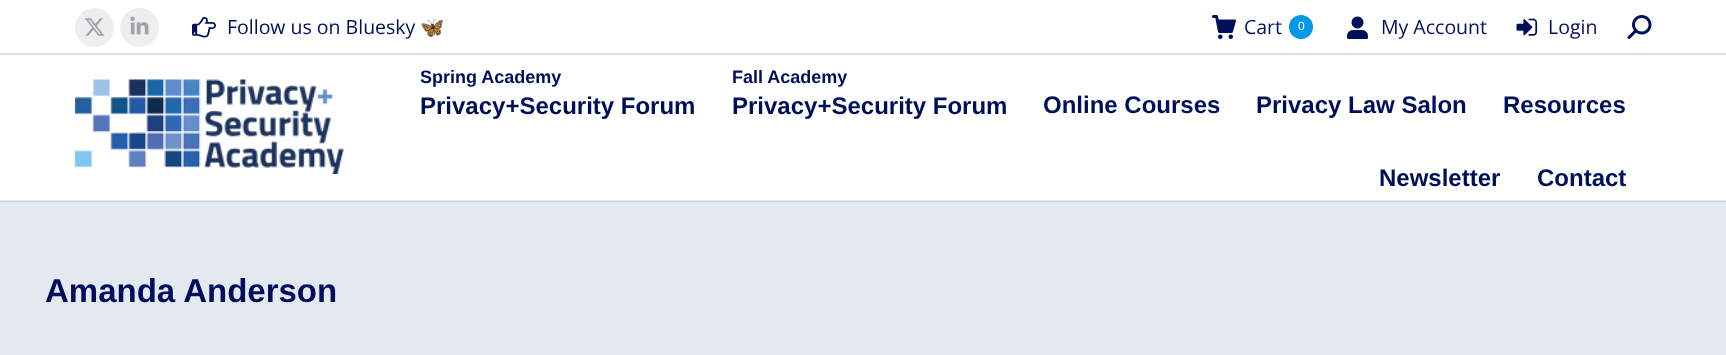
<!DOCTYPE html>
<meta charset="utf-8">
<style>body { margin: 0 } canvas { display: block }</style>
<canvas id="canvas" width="1726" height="355"></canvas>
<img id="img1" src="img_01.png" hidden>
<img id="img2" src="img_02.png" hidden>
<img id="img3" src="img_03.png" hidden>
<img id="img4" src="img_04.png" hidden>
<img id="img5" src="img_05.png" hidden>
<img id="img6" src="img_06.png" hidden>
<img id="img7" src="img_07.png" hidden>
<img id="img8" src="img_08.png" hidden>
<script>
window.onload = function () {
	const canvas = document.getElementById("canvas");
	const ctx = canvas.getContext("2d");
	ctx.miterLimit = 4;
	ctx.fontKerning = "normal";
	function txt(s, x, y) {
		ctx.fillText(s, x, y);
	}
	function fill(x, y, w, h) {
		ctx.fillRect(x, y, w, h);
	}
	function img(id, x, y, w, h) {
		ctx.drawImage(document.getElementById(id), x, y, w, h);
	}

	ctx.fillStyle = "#FFFFFF";
	fill(0, 0, 1726, 355);
	ctx.fillStyle = "#E9E9E9";
	fill(0, 200, 1726, 1);
	ctx.fillStyle = "#EEEEEF";
	ctx.beginPath();
	ctx.arc(94.5, 27.5, 19.5, 0, Math.PI * 2);
	ctx.fill();
	img("img1", 85, 18, 20, 18);
	ctx.beginPath();
	ctx.arc(139.5, 27.5, 19.5, 0, Math.PI * 2);
	ctx.fill();
	img("img2", 130, 16, 19, 19);
	img("img3", 192, 17, 24, 21);
	img("img4", 1212, 15, 24, 24);
	ctx.fillStyle = "#0198E7";
	ctx.beginPath();
	ctx.arc(1301, 27, 12, 0, Math.PI * 2);
	ctx.fill();
	img("img5", 1347, 16, 21, 23);
	img("img6", 1516, 18, 22, 18);
	img("img7", 1627, 15, 25, 24);
	ctx.fillStyle = "#DDDDDD";
	fill(0, 53, 1726, 2);
	img("img8", 75, 79, 269, 95);
	ctx.fillStyle = "#E4E8EF";
	fill(0, 202, 1726, 153);
	ctx.fillStyle = "#D1D4DA";
	fill(0, 201, 1726, 1);
	ctx.font = "19.5px Open Sans";
	ctx.fillStyle = "#000F5C";
	txt("Follow us on Bluesky", 227, 34);
	ctx.font = "19.5px Noto Color Emoji";
	txt("🦋", 420, 34);
	ctx.font = "19.5px Open Sans";
	txt("Cart", 1244, 34);
	ctx.font = "12px Liberation Sans";
	ctx.fillStyle = "#FFFFFF";
	txt("0", 1298, 30);
	ctx.font = "19.5px Open Sans";
	ctx.fillStyle = "#000F5C";
	txt("My Account", 1381, 34);
	txt("Login", 1548, 34);
	ctx.font = "bold 18px Liberation Sans";
	txt("Spring Academy", 420, 83);
	ctx.font = "bold 24px Liberation Sans";
	txt("Privacy+Security Forum", 420, 114);
	ctx.font = "bold 18px Liberation Sans";
	txt("Fall Academy", 732, 83);
	ctx.font = "bold 24px Liberation Sans";
	txt("Privacy+Security Forum", 732, 114);
	txt("Online Courses", 1043, 113);
	txt("Privacy Law Salon", 1256, 113);
	txt("Resources", 1503, 113);
	txt("Newsletter", 1379, 186);
	txt("Contact", 1537, 186);
	ctx.font = "bold 33px Liberation Sans";
	txt("Amanda Anderson", 45, 302);
};
</script>
